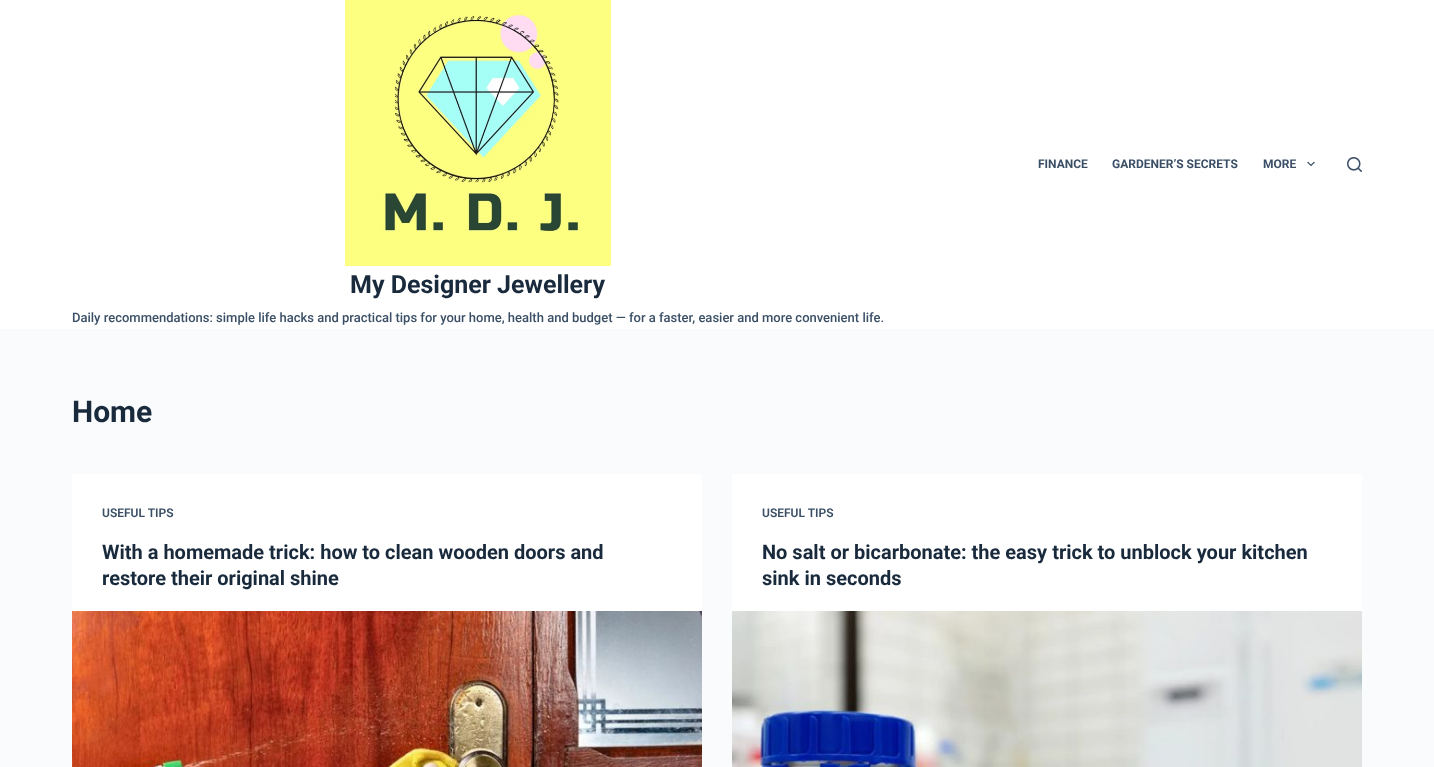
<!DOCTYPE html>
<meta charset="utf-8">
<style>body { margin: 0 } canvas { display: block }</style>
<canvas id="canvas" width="1434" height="767"></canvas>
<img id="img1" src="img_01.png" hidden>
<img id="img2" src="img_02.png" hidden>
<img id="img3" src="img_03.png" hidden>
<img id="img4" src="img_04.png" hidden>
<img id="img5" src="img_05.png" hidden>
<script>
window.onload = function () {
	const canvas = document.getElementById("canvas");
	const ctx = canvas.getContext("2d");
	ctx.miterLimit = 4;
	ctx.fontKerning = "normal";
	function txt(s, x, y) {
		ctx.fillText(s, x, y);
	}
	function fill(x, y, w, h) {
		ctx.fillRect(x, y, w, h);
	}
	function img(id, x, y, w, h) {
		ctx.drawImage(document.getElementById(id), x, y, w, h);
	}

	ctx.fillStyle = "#FAFBFC";
	fill(0, 0, 1434, 767);
	ctx.fillStyle = "#FFFFFF";
	fill(0, 0, 1434, 329);
	img("img1", 1307, 161, 8, 6);
	img("img2", 1347, 157, 15, 15);
	img("img3", 345, 0, 266, 266);
	fill(72, 474, 630, 137);
	img("img4", 72, 611, 630, 156);
	fill(732, 474, 630, 137);
	img("img5", 732, 611, 630, 156);
	ctx.font = "bold 12px Roboto";
	ctx.fillStyle = "#3A4F66";
	txt("FINANCE", 1038, 168);
	txt("GARDENER’S SECRETS", 1112, 168);
	txt("MORE", 1263, 168);
	ctx.font = "bold 25px Roboto";
	ctx.fillStyle = "#192A3D";
	txt("My Designer Jewellery", 350, 293);
	ctx.font = "500 13px Roboto";
	ctx.fillStyle = "#3A4F66";
	txt("Daily recommendations: simple life hacks and practical tips for your home, health and budget — for a faster, easier and more convenient life.", 72, 322);
	ctx.font = "bold 30px Roboto";
	ctx.fillStyle = "#192A3D";
	txt("Home", 72, 422);
	ctx.font = "600 12px Roboto";
	ctx.fillStyle = "#3A4F66";
	txt("USEFUL TIPS", 102, 517);
	ctx.font = "bold 20px Roboto";
	ctx.fillStyle = "#192A3D";
	txt("With a homemade trick: how to clean wooden doors and", 102, 559);
	txt("restore their original shine", 102, 585);
	ctx.font = "600 12px Roboto";
	ctx.fillStyle = "#3A4F66";
	txt("USEFUL TIPS", 762, 517);
	ctx.font = "bold 20px Roboto";
	ctx.fillStyle = "#192A3D";
	txt("No salt or bicarbonate: the easy trick to unblock your kitchen", 762, 559);
	txt("sink in seconds", 762, 585);
};
</script>
